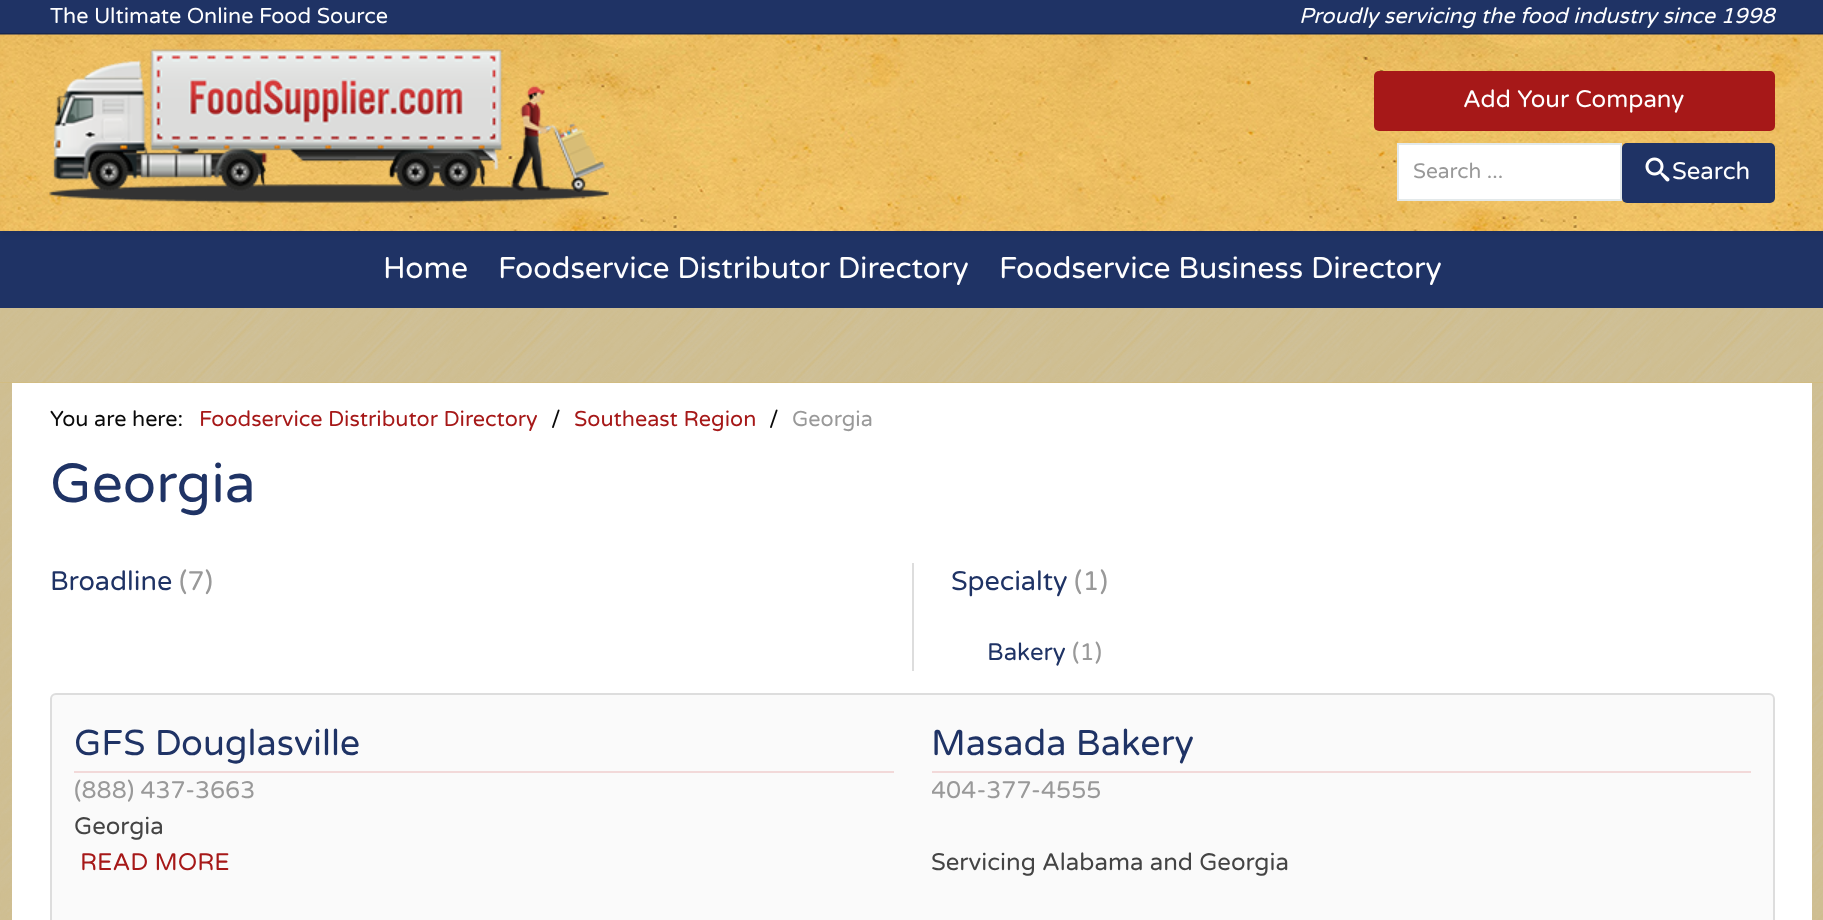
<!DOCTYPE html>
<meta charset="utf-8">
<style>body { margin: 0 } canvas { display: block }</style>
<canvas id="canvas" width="1823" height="920"></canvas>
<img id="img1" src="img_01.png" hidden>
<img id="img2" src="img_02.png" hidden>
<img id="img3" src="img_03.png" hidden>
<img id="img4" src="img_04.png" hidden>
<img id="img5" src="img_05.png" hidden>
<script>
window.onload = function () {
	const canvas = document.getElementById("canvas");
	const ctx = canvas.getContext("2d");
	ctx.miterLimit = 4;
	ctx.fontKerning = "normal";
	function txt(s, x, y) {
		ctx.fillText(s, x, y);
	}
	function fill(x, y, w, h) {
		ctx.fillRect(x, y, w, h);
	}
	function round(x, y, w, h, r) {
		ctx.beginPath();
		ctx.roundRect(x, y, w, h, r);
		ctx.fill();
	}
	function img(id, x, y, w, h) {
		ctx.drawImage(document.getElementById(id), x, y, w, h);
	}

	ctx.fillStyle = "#D4BA74";
	fill(0, 0, 1823, 920);
	img("img1", 0, 383, 1823, 537);
	ctx.fillStyle = "#1F3365";
	fill(0, 0, 1823, 33);
	ctx.fillStyle = "#18274E";
	fill(0, 33, 1823, 2);
	ctx.fillStyle = "#1F3365";
	fill(0, 231, 1823, 77);
	ctx.fillStyle = "rgba(0, 0, 0, 0.05)";
	ctx.filter = "blur(2px)";
	ctx.beginPath();
	ctx.rect(0, 39, 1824, 197);
	ctx.fill();
	ctx.filter = "none";
	img("img2", 0, 34, 1823, 197);
	img("img3", 49, 49, 560, 154);
	ctx.fillStyle = "#A61818";
	round(1374, 71, 401, 60, 5);
	ctx.fillStyle = "#FFFFFF";
	ctx.beginPath();
	ctx.rect(1398, 144, 223, 56);
	ctx.fill();
	ctx.strokeStyle = "#E3E9EB";
	ctx.lineWidth = 2;
	ctx.stroke();
	ctx.fillStyle = "#1F3365";
	round(1622, 143, 153, 60, 5);
	img("img4", 1645, 157, 25, 25);
	img("img5", 0, 308, 1823, 75);
	ctx.fillStyle = "#FFFFFF";
	fill(12, 383, 1800, 537);
	ctx.fillStyle = "#DDDDDD";
	fill(912, 563, 2, 108);
	ctx.fillStyle = "#FAFAFA";
	ctx.beginPath();
	ctx.roundRect(51, 694, 1723, 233, 5);
	ctx.fill();
	ctx.strokeStyle = "#DDDDDD";
	ctx.stroke();
	ctx.fillStyle = "#F2D9D9";
	fill(74, 771, 820, 2);
	fill(932, 771, 819, 2);
	ctx.font = "21.6px Varela Round";
	ctx.fillStyle = "#FFFFFF";
	txt("The Ultimate Online Food Source", 50, 23);
	ctx.font = "italic 21.6px Varela Round";
	txt("Proudly servicing the food industry since 1998", 1299, 23);
	ctx.font = "24px Varela Round";
	txt("Add Your Company", 1463, 107);
	ctx.font = "21px Varela Round";
	ctx.fillStyle = "#999999";
	txt("Search ...", 1413, 178);
	ctx.font = "24px Varela Round";
	ctx.fillStyle = "#FFFFFF";
	txt("Search", 1672, 179);
	ctx.font = "30px Varela Round";
	txt("Home", 383, 278);
	txt("Foodservice Distributor Directory", 498, 278);
	txt("Foodservice Business Directory", 999, 278);
	ctx.font = "21.6px Varela Round";
	ctx.fillStyle = "#0A0A0A";
	txt("You are here:", 50, 426);
	ctx.fillStyle = "#A61818";
	txt("Foodservice Distributor Directory", 199, 426);
	ctx.fillStyle = "#0A0A0A";
	txt("/", 551, 426);
	ctx.fillStyle = "#A61818";
	txt("Southeast Region", 574, 426);
	ctx.fillStyle = "#0A0A0A";
	txt("/", 769, 426);
	ctx.fillStyle = "#999999";
	txt("Georgia", 792, 426);
	ctx.font = "55px Varela Round";
	ctx.fillStyle = "#1F3365";
	txt("Georgia", 50, 502);
	ctx.font = "27px Varela Round";
	txt("Broadline", 50, 590);
	ctx.fillStyle = "#999999";
	txt("(7)", 179, 590);
	ctx.fillStyle = "#1F3365";
	txt("Specialty", 951, 590);
	ctx.fillStyle = "#999999";
	txt("(1)", 1074, 590);
	ctx.font = "24px Varela Round";
	ctx.fillStyle = "#1F3365";
	txt("Bakery", 987, 660);
	ctx.fillStyle = "#999999";
	txt("(1)", 1072, 660);
	ctx.font = "36px Varela Round";
	ctx.fillStyle = "#1F3365";
	txt("GFS Douglasville", 74, 755);
	ctx.font = "24px Varela Round";
	ctx.fillStyle = "#999999";
	txt("(888) 437-3663", 74, 798);
	ctx.fillStyle = "#444444";
	txt("Georgia", 74, 834);
	ctx.fillStyle = "#A61818";
	txt("READ MORE", 80, 870);
	ctx.font = "36px Varela Round";
	ctx.fillStyle = "#1F3365";
	txt("Masada Bakery", 931, 755);
	ctx.save();
	ctx.beginPath();
	ctx.rect(932, 717, 819, 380);
	ctx.clip();
	ctx.font = "24px Varela Round";
	ctx.fillStyle = "#999999";
	txt("404-377-4555", 931, 798);
	ctx.restore();
	ctx.font = "24px Varela Round";
	ctx.fillStyle = "#444444";
	txt("Servicing Alabama and Georgia", 931, 870);
};
</script>
